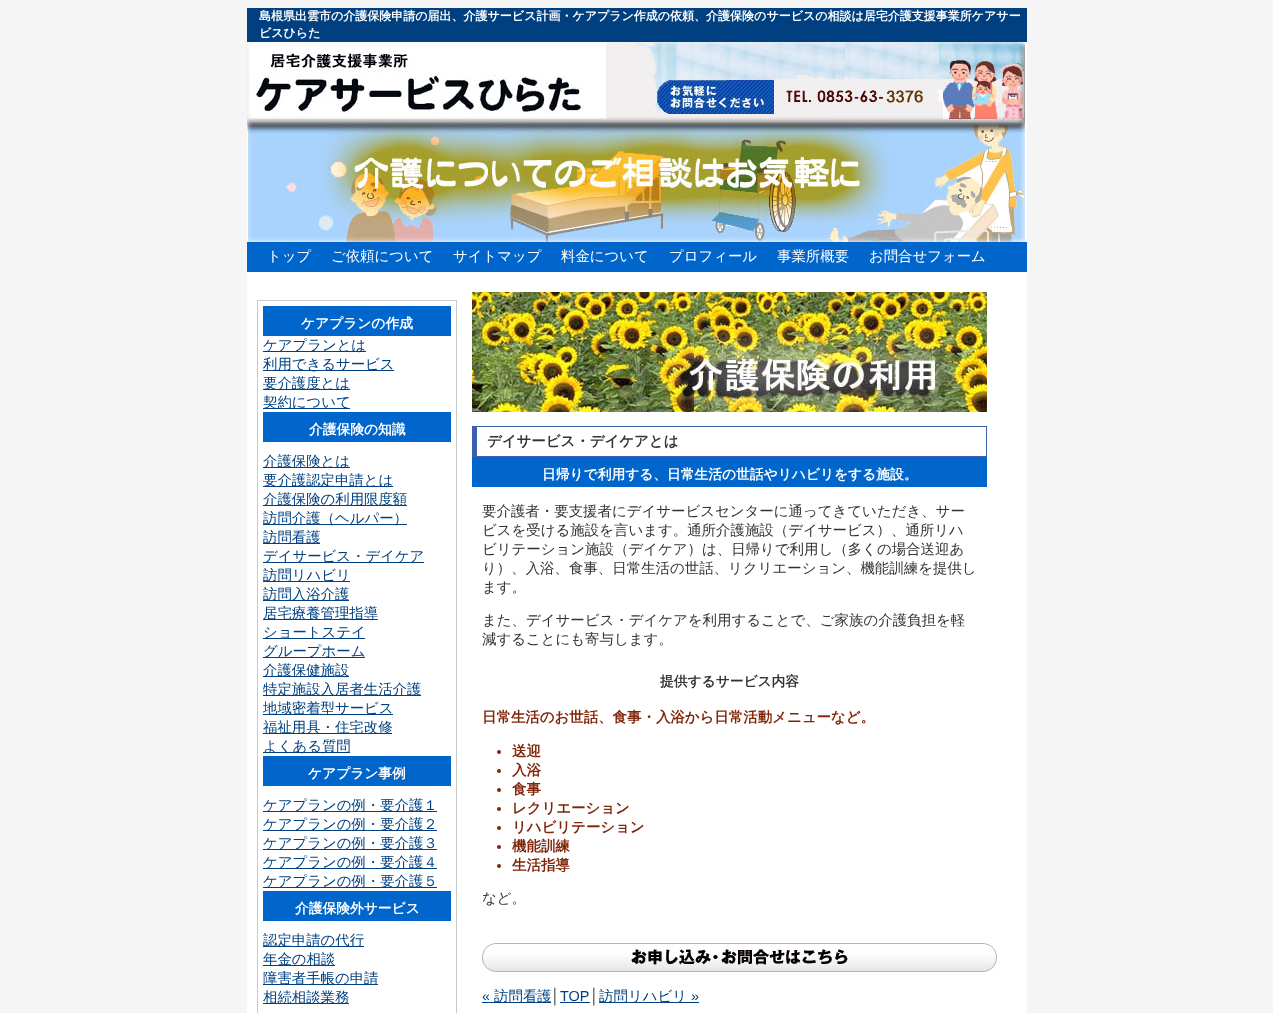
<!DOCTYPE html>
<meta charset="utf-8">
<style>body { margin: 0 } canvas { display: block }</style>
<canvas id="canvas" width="1273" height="1013"></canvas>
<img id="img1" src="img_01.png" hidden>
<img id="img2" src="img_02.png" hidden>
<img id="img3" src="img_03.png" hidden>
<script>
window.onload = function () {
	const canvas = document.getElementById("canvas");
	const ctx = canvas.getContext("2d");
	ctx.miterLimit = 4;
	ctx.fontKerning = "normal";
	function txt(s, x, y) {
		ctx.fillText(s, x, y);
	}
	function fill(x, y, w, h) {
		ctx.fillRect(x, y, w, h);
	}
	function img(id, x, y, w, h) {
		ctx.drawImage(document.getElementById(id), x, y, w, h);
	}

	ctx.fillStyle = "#F5F5F5";
	fill(0, 0, 1273, 1013);
	ctx.fillStyle = "#FFFFFF";
	fill(247, 272, 780, 741);
	ctx.fillStyle = "#004080";
	fill(247, 8, 780, 34);
	img("img1", 247, 42, 780, 200);
	ctx.fillStyle = "#0066CC";
	fill(247, 242, 780, 30);
	ctx.strokeStyle = "#C9C9C9";
	ctx.strokeRect(257.5, 300.5, 199, 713);
	fill(263, 306, 188, 30);
	ctx.fillStyle = "#004080";
	fill(263, 351, 103, 1);
	fill(263, 370, 131, 1);
	fill(263, 389, 87, 1);
	fill(263, 408, 87, 1);
	ctx.fillStyle = "#0066CC";
	fill(263, 412, 188, 30);
	ctx.fillStyle = "#004080";
	fill(263, 467, 87, 1);
	fill(263, 486, 130, 1);
	fill(263, 505, 144, 1);
	fill(263, 524, 144, 1);
	fill(263, 543, 57, 1);
	fill(263, 562, 161, 1);
	fill(263, 581, 87, 1);
	fill(263, 600, 86, 1);
	fill(263, 619, 115, 1);
	fill(263, 638, 102, 1);
	fill(263, 657, 102, 1);
	fill(263, 676, 86, 1);
	fill(263, 695, 158, 1);
	fill(263, 714, 130, 1);
	fill(263, 733, 129, 1);
	fill(263, 752, 87, 1);
	ctx.fillStyle = "#0066CC";
	fill(263, 756, 188, 30);
	ctx.fillStyle = "#004080";
	fill(263, 811, 174, 1);
	fill(263, 830, 174, 1);
	fill(263, 849, 174, 1);
	fill(263, 868, 174, 1);
	fill(263, 887, 174, 1);
	ctx.fillStyle = "#0066CC";
	fill(263, 891, 188, 30);
	ctx.fillStyle = "#004080";
	fill(263, 946, 101, 1);
	fill(263, 965, 72, 1);
	fill(263, 984, 115, 1);
	fill(263, 1003, 86, 1);
	img("img2", 472, 292, 515, 120);
	ctx.fillStyle = "#3D62AD";
	fill(472, 426, 515, 1);
	fill(986, 426, 1, 31);
	fill(472, 456, 515, 1);
	fill(472, 426, 5, 31);
	ctx.fillStyle = "#0066CC";
	fill(472, 457, 515, 30);
	ctx.fillStyle = "#7F2509";
	ctx.beginPath();
	ctx.arc(499, 752, 2, 0, Math.PI * 2);
	ctx.fill();
	ctx.beginPath();
	ctx.arc(499, 771, 2, 0, Math.PI * 2);
	ctx.fill();
	ctx.beginPath();
	ctx.arc(499, 790, 2, 0, Math.PI * 2);
	ctx.fill();
	ctx.beginPath();
	ctx.arc(499, 809, 2, 0, Math.PI * 2);
	ctx.fill();
	ctx.beginPath();
	ctx.arc(499, 828, 2, 0, Math.PI * 2);
	ctx.fill();
	ctx.beginPath();
	ctx.arc(499, 847, 2, 0, Math.PI * 2);
	ctx.fill();
	ctx.beginPath();
	ctx.arc(499, 866, 2, 0, Math.PI * 2);
	ctx.fill();
	img("img3", 482, 943, 515, 29);
	ctx.fillStyle = "#004080";
	fill(482, 1002, 69, 1);
	fill(560, 1002, 30, 1);
	fill(599, 1002, 100, 1);
	ctx.font = "bold 12px WenQuanYi Zen Hei";
	ctx.fillStyle = "#FFFFFF";
	txt("島根県出雲市の介護保険申請の届出、介護サービス計画・ケアプラン作成の依頼、介護保険のサービスの相談は居宅介護支援事業所ケアサー", 259, 20);
	txt("ビスひらた", 259, 37);
	ctx.font = "500 14.4px WenQuanYi Zen Hei";
	txt("トップ", 267, 261);
	txt("ご依頼について", 331, 261);
	txt("サイトマップ", 453, 261);
	txt("料金について", 561, 261);
	txt("プロフィール", 669, 261);
	txt("事業所概要", 777, 261);
	txt("お問合せフォーム", 869, 261);
	ctx.font = "bold 13.75px WenQuanYi Zen Hei";
	txt("ケアプランの作成", 301, 328);
	ctx.font = "500 14.4px WenQuanYi Zen Hei";
	ctx.fillStyle = "#004080";
	txt("ケアプランとは", 263, 350);
	txt("利用できるサービス", 263, 369);
	txt("要介護度とは", 263, 388);
	txt("契約について", 263, 407);
	ctx.font = "bold 13.75px WenQuanYi Zen Hei";
	ctx.fillStyle = "#FFFFFF";
	txt("介護保険の知識", 309, 434);
	ctx.font = "500 14.4px WenQuanYi Zen Hei";
	ctx.fillStyle = "#004080";
	txt("介護保険とは", 263, 466);
	txt("要介護認定申請とは", 263, 485);
	txt("介護保険の利用限度額", 263, 504);
	txt("訪問介護（ヘルパー）", 263, 523);
	txt("訪問看護", 263, 542);
	txt("デイサービス・デイケア", 263, 561);
	txt("訪問リハビリ", 263, 580);
	txt("訪問入浴介護", 263, 599);
	txt("居宅療養管理指導", 263, 618);
	txt("ショートステイ", 263, 637);
	txt("グループホーム", 263, 656);
	txt("介護保健施設", 263, 675);
	txt("特定施設入居者生活介護", 263, 694);
	txt("地域密着型サービス", 263, 713);
	txt("福祉用具・住宅改修", 263, 732);
	txt("よくある質問", 263, 751);
	ctx.font = "bold 13.75px WenQuanYi Zen Hei";
	ctx.fillStyle = "#FFFFFF";
	txt("ケアプラン事例", 308, 778);
	ctx.font = "500 14.4px WenQuanYi Zen Hei";
	ctx.fillStyle = "#004080";
	txt("ケアプランの例・要介護１", 263, 810);
	txt("ケアプランの例・要介護２", 263, 829);
	txt("ケアプランの例・要介護３", 263, 848);
	txt("ケアプランの例・要介護４", 263, 867);
	txt("ケアプランの例・要介護５", 263, 886);
	ctx.font = "bold 13.75px WenQuanYi Zen Hei";
	ctx.fillStyle = "#FFFFFF";
	txt("介護保険外サービス", 295, 913);
	ctx.font = "500 14.4px WenQuanYi Zen Hei";
	ctx.fillStyle = "#004080";
	txt("認定申請の代行", 263, 945);
	txt("年金の相談", 263, 964);
	txt("障害者手帳の申請", 263, 983);
	txt("相続相談業務", 263, 1002);
	ctx.font = "bold 14.45px WenQuanYi Zen Hei";
	ctx.fillStyle = "#333333";
	txt("デイサービス・デイケアとは", 487, 446);
	ctx.font = "bold 13.75px WenQuanYi Zen Hei";
	ctx.fillStyle = "#FFFFFF";
	txt("日帰りで利用する、日常生活の世話やリハビリをする施設。", 542, 479);
	ctx.font = "500 14.45px WenQuanYi Zen Hei";
	ctx.fillStyle = "#333333";
	txt("要介護者・要支援者にデイサービスセンターに通ってきていただき、サー", 482, 516);
	txt("ビスを受ける施設を言います。通所介護施設（デイサービス）、通所リハ", 482, 535);
	txt("ビリテーション施設（デイケア）は、日帰りで利用し（多くの場合送迎あ", 482, 554);
	txt("り）、入浴、食事、日常生活の世話、リクリエーション、機能訓練を提供し", 482, 573);
	txt("ます。", 482, 592);
	txt("また、デイサービス・デイケアを利用することで、ご家族の介護負担を軽", 482, 625);
	txt("減することにも寄与します。", 482, 644);
	ctx.font = "bold 13.75px WenQuanYi Zen Hei";
	txt("提供するサービス内容", 660, 686);
	ctx.font = "bold 14.45px WenQuanYi Zen Hei";
	ctx.fillStyle = "#7F2509";
	txt("日常生活のお世話、食事・入浴から日常活動メニューなど。", 482, 722);
	txt("送迎", 512, 756);
	txt("入浴", 512, 775);
	txt("食事", 512, 794);
	txt("レクリエーション", 512, 813);
	txt("リハビリテーション", 512, 832);
	txt("機能訓練", 512, 851);
	txt("生活指導", 512, 870);
	ctx.font = "500 14.45px WenQuanYi Zen Hei";
	ctx.fillStyle = "#333333";
	txt("など。", 482, 903);
	ctx.font = "14.45px Liberation Sans";
	ctx.fillStyle = "#004080";
	txt("«", 482, 1001);
	ctx.font = "500 14.45px WenQuanYi Zen Hei";
	txt("訪問看護", 494, 1001);
	ctx.font = "14.45px Liberation Sans";
	ctx.fillStyle = "#333333";
	txt("│", 551, 1001);
	ctx.fillStyle = "#004080";
	txt("TOP", 560, 1001);
	ctx.fillStyle = "#333333";
	txt("│", 590, 1001);
	ctx.font = "500 14.45px WenQuanYi Zen Hei";
	ctx.fillStyle = "#004080";
	txt("訪問リハビリ", 599, 1001);
	ctx.font = "14.45px Liberation Sans";
	txt("»", 691, 1001);
};
</script>
